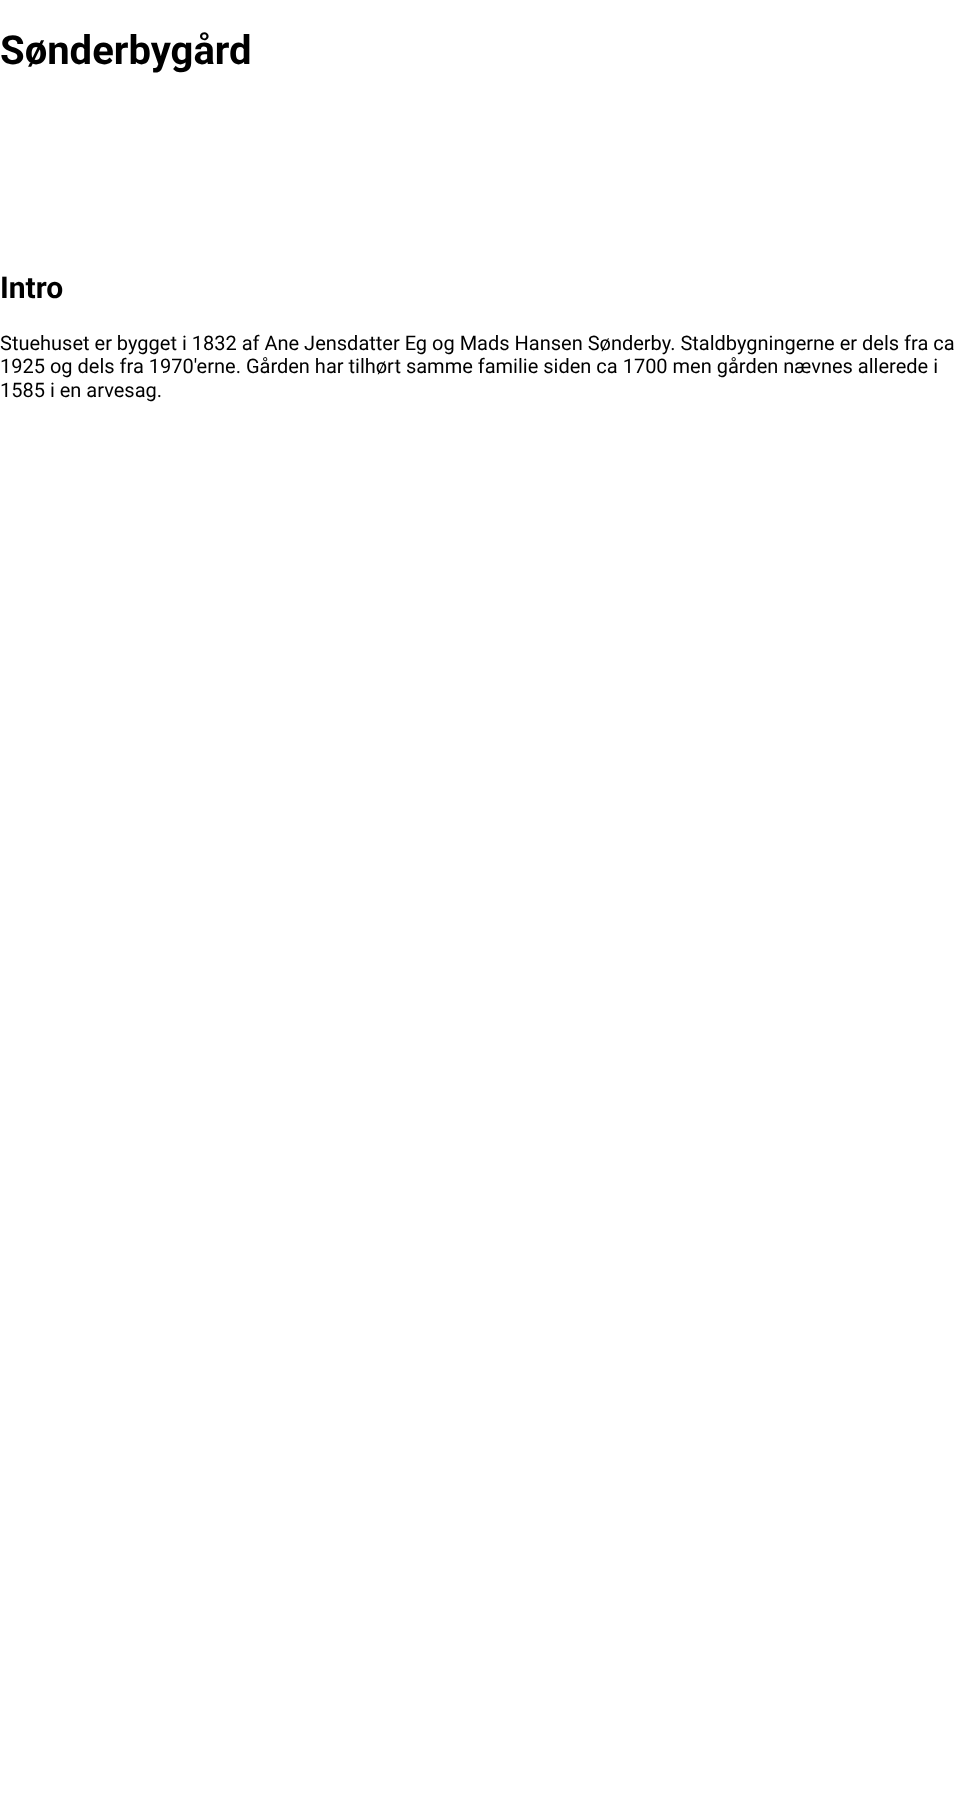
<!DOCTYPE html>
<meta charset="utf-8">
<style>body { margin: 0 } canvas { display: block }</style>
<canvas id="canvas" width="977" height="1797"></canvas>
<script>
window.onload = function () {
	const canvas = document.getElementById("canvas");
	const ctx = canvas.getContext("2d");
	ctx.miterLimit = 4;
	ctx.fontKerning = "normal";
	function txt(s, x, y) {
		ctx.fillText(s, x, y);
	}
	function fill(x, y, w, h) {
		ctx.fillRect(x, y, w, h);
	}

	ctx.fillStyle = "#FFFFFF";
	fill(0, 0, 977, 1797);
	ctx.font = "bold 40px Roboto";
	ctx.fillStyle = "#000000";
	txt("Sønderbygård", 0, 64);
	ctx.font = "bold 30px Roboto";
	txt("Intro", 0, 298);
	ctx.font = "20px Roboto";
	txt("Stuehuset er bygget i 1832 af Ane Jensdatter Eg og Mads Hansen Sønderby. Staldbygningerne er dels fra ca", 0, 350);
	txt("1925 og dels fra 1970'erne. Gården har tilhørt samme familie siden ca 1700 men gården nævnes allerede i", 0, 373);
	txt("1585 i en arvesag.", 0, 397);
};
</script>
